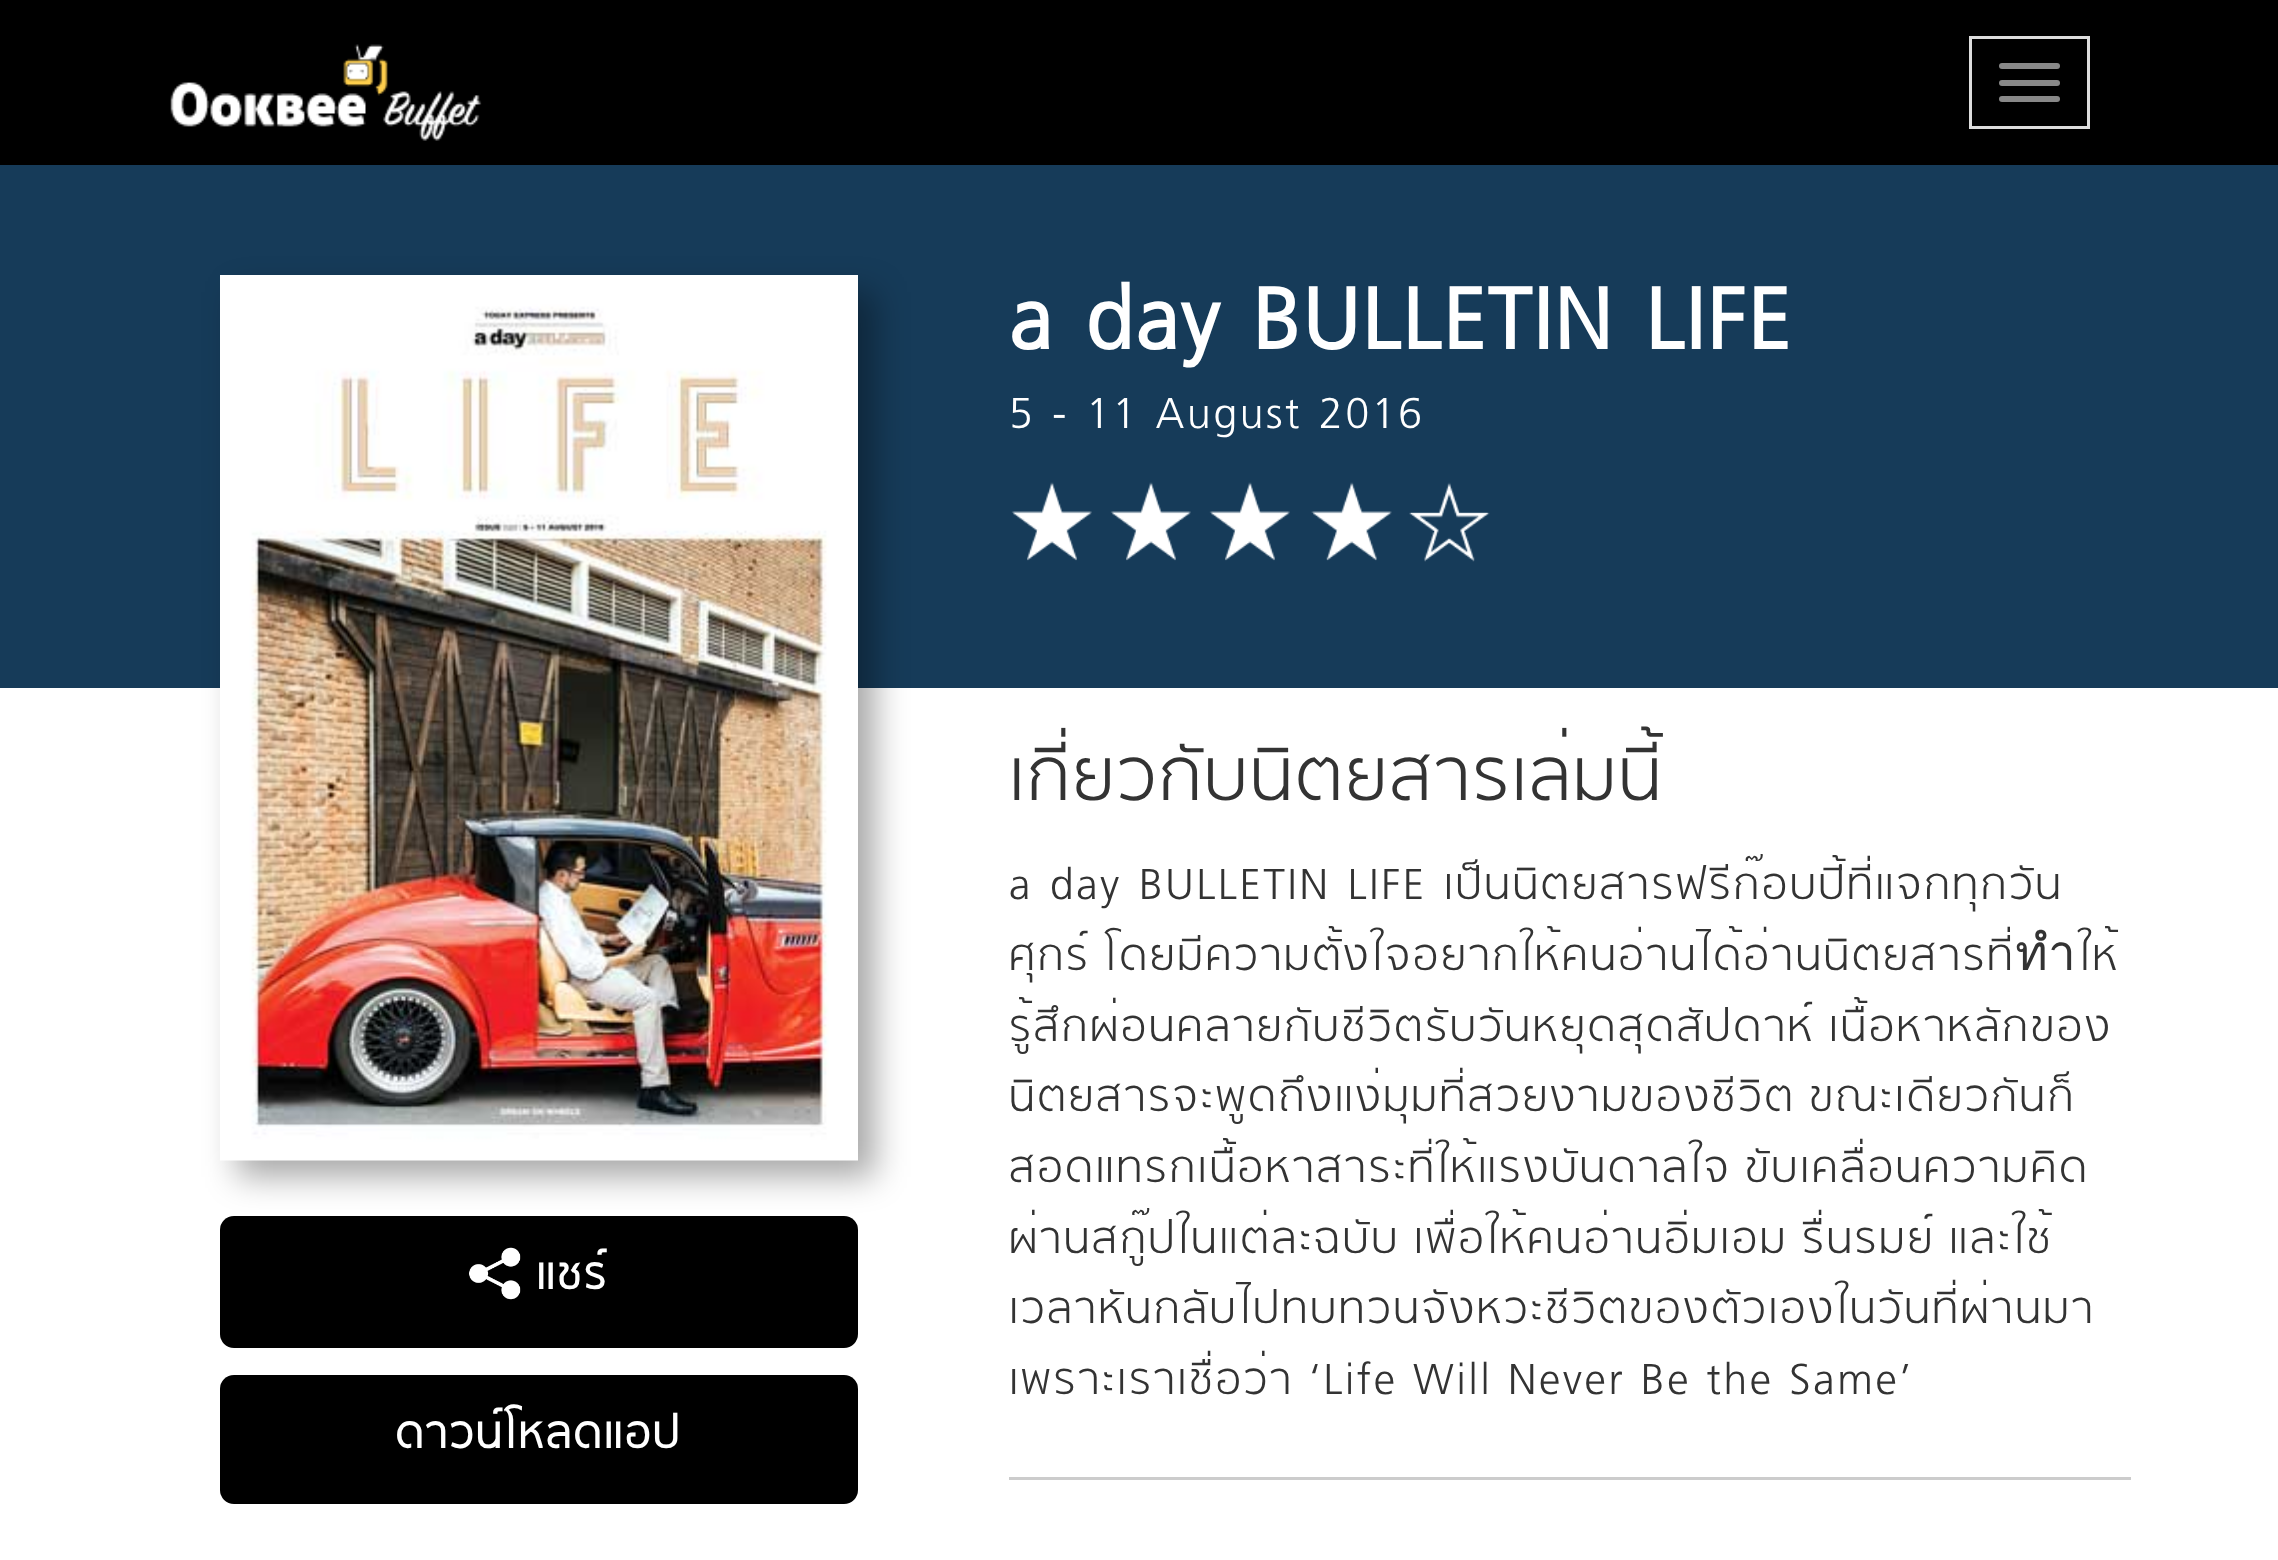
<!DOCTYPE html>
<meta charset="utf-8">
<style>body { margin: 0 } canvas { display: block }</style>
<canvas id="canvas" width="2278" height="1560"></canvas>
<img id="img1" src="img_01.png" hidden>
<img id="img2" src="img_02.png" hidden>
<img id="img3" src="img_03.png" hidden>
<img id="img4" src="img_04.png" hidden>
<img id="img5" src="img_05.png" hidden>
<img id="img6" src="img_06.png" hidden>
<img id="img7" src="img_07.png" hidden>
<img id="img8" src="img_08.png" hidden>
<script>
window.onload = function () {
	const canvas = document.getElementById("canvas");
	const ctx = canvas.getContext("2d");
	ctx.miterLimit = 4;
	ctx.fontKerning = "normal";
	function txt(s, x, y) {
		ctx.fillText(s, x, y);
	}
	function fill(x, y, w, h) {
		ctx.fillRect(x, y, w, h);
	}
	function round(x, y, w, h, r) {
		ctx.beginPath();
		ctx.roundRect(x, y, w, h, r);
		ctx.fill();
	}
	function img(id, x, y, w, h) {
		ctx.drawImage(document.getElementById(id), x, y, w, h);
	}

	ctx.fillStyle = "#FFFFFF";
	fill(0, 0, 2278, 1560);
	ctx.fillStyle = "#000000";
	fill(0, 0, 2278, 165);
	img("img1", 170, 44, 312, 97);
	ctx.strokeStyle = "#DDDDDD";
	ctx.lineWidth = 3;
	ctx.strokeRect(1970.5, 37.5, 118, 90);
	ctx.fillStyle = "#888888";
	round(1999, 63, 61, 6, 3);
	round(1999, 80, 61, 6, 3);
	round(1999, 96, 61, 6, 3);
	ctx.fillStyle = "#163B59";
	fill(0, 165, 2278, 523);
	ctx.fillStyle = "rgba(0, 0, 0, 0.34)";
	ctx.filter = "blur(16.5px)";
	ctx.beginPath();
	ctx.rect(237, 292, 638, 885);
	ctx.fill();
	ctx.filter = "none";
	img("img2", 220, 275, 638, 886);
	ctx.fillStyle = "#000000";
	round(220, 1216, 638, 132, 14);
	img("img3", 469, 1247, 52, 53);
	round(220, 1375, 638, 129, 14);
	img("img4", 1011, 482, 81, 79);
	img("img5", 1110, 482, 81, 79);
	img("img6", 1209, 482, 81, 79);
	img("img7", 1311, 482, 81, 79);
	img("img8", 1409, 482, 81, 80);
	ctx.fillStyle = "#CCCCCC";
	fill(1009, 1477, 1122, 3);
	ctx.letterSpacing = "2.75px";
	ctx.font = "bold 49.5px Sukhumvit";
	ctx.fillStyle = "#FFFFFF";
	txt("แชร์", 536, 1289);
	txt("ดาวน์โหลดแอป", 395, 1448);
	ctx.font = "bold 99px Sukhumvit";
	txt("a day BULLETIN LIFE", 1009, 349);
	ctx.font = "300 49.5px Sukhumvit";
	txt("5 - 11 August 2016", 1009, 428);
	ctx.font = "300 82.5px Sukhumvit";
	ctx.fillStyle = "#333333";
	txt("เกี่ยวกับนิตยสารเล่มนี้", 1009, 800);
	ctx.font = "300 49.5px Sukhumvit";
	txt("a day BULLETIN LIFE เป็นนิตยสารฟรีก๊อบปี้ที่แจกทุกวัน", 1009, 899);
	ctx.wordSpacing = "-3px";
	txt("ศุกร์ โดยมีความตั้งใจอยากให้คนอ่านได้อ่านนิตยสารที่ทำให้", 1009, 970);
	txt("รู้สึกผ่อนคลายกับชีวิตรับวันหยุดสุดสัปดาห์ เนื้อหาหลักของ", 1009, 1041);
	txt("นิตยสารจะพูดถึงแง่มุมที่สวยงามของชีวิต ขณะเดียวกันก็", 1009, 1111);
	txt("สอดแทรกเนื้อหาสาระที่ให้แรงบันดาลใจ ขับเคลื่อนความคิด", 1009, 1182);
	txt("ผ่านสกู๊ปในแต่ละฉบับ เพื่อให้คนอ่านอิ่มเอม รื่นรมย์ และใช้", 1009, 1253);
	ctx.wordSpacing = "0px";
	txt("เวลาหันกลับไปทบทวนจังหวะชีวิตของตัวเองในวันที่ผ่านมา", 1009, 1323);
	ctx.wordSpacing = "-1.5px";
	txt("เพราะเราเชื่อว่า ‘Life Will Never Be the Same’", 1009, 1394);
};
</script>
